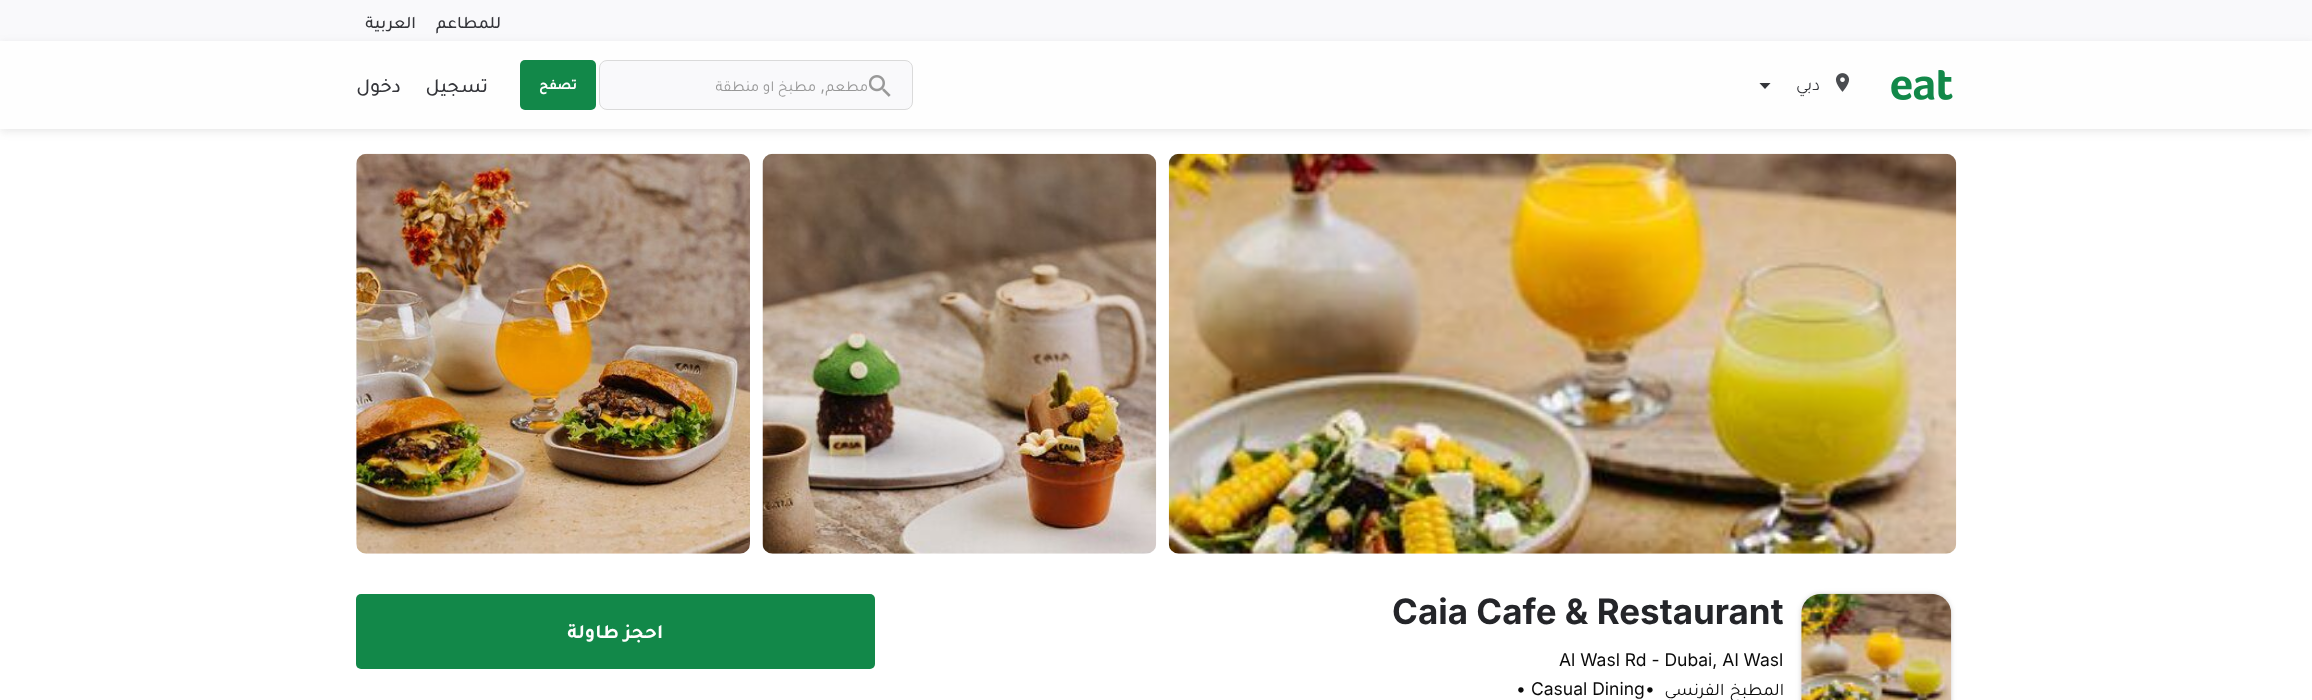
<!DOCTYPE html>
<meta charset="utf-8">
<style>body { margin: 0 } canvas { display: block }</style>
<canvas id="canvas" width="2312" height="700"></canvas>
<img id="img1" src="img_01.png" hidden>
<img id="img2" src="img_02.png" hidden>
<img id="img3" src="img_03.png" hidden>
<img id="img4" src="img_04.png" hidden>
<img id="img5" src="img_05.png" hidden>
<img id="img6" src="img_06.png" hidden>
<img id="img7" src="img_07.png" hidden>
<script>
window.onload = function () {
	const canvas = document.getElementById("canvas");
	const ctx = canvas.getContext("2d");
	ctx.miterLimit = 4;
	ctx.fontKerning = "normal";
	function txt(s, x, y) {
		ctx.fillText(s, x, y);
	}
	function fill(x, y, w, h) {
		ctx.fillRect(x, y, w, h);
	}
	function round(x, y, w, h, r) {
		ctx.beginPath();
		ctx.roundRect(x, y, w, h, r);
		ctx.fill();
	}
	function img(id, x, y, w, h) {
		ctx.drawImage(document.getElementById(id), x, y, w, h);
	}

	ctx.fillStyle = "#FFFFFF";
	fill(0, 0, 2312, 700);
	ctx.fillStyle = "#F9F9FB";
	fill(0, 0, 2312, 41);
	ctx.fillStyle = "rgba(80, 80, 80, 0.15)";
	ctx.filter = "blur(5px)";
	ctx.beginPath();
	ctx.rect(0, 44, 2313, 87);
	ctx.fill();
	ctx.filter = "none";
	ctx.fillStyle = "#FEFEFE";
	fill(0, 41, 2312, 88);
	img("img1", 1891, 70, 62, 30);
	img("img2", 1835, 73, 15, 19);
	ctx.save();
	ctx.beginPath();
	ctx.rect(1759, 83, 12, 6);
	ctx.clip();
	ctx.fillStyle = "#34353A";
	ctx.beginPath();
	ctx.moveTo(1759, 82.5);
	ctx.lineTo(1765, 89);
	ctx.lineTo(1771, 82.5);
	ctx.closePath();
	ctx.fill();
	ctx.restore();
	ctx.fillStyle = "#F9F9FB";
	ctx.beginPath();
	ctx.roundRect(599.5, 60.5, 313, 49, 7.5);
	ctx.fill();
	ctx.strokeStyle = "#DADADA";
	ctx.stroke();
	img("img3", 869, 75, 22, 22);
	ctx.fillStyle = "#128849";
	round(520, 60, 76, 50, 5);
	img("img4", 1168, 153, 789, 401);
	img("img5", 762, 153, 395, 401);
	img("img6", 356, 153, 394, 401);
	ctx.fillStyle = "rgba(80, 80, 80, 0.25)";
	ctx.filter = "blur(2.5px)";
	ctx.beginPath();
	ctx.roundRect(1801, 594, 150, 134, 20);
	ctx.fill();
	ctx.filter = "none";
	img("img7", 1801, 593, 151, 107);
	ctx.fillStyle = "#128849";
	round(356, 594, 519, 75, 5);
	ctx.direction = "rtl";
	ctx.font = "500 17.5px Tajawal";
	ctx.fillStyle = "#34353A";
	txt("للمطاعم", 501, 28);
	txt("العربية", 416, 28);
	ctx.font = "17.5px Tajawal";
	txt("دبي", 1820, 90);
	ctx.font = "15.25px Tajawal";
	ctx.fillStyle = "#979797";
	txt("مطعم", 868, 91);
	ctx.font = "15.25px Inter";
	txt(",", 825, 91);
	ctx.font = "15.25px Tajawal";
	txt("مطبخ او منطقة", 816, 91);
	ctx.font = "bold 14px Tajawal";
	ctx.fillStyle = "#FEFEFE";
	txt("تصفح", 577, 89);
	ctx.font = "500 20px Tajawal";
	ctx.fillStyle = "#34353A";
	txt("تسجيل", 488, 92);
	txt("دخول", 401, 92);
	ctx.direction = "ltr";
	ctx.font = "bold 35px Inter";
	ctx.fillStyle = "#242529";
	txt("Caia Cafe & Restaurant", 1392, 624);
	ctx.font = "17.5px Inter";
	ctx.fillStyle = "#0A0A0A";
	txt("Al Wasl Rd - Dubai, Al Wasl", 1559, 666);
	ctx.wordSpacing = "1px";
	ctx.direction = "rtl";
	ctx.font = "17.5px Tajawal";
	txt("المطبخ الفرنسي", 1784, 695);
	ctx.wordSpacing = "0px";
	ctx.direction = "ltr";
	ctx.font = "17.5px Inter";
	txt("•", 1645, 695);
	txt("Casual Dining", 1531, 695);
	txt("•", 1516, 695);
	ctx.direction = "rtl";
	ctx.font = "bold 20px Tajawal";
	ctx.fillStyle = "#FEFEFE";
	txt("احجز طاولة", 663, 638);
};
</script>
